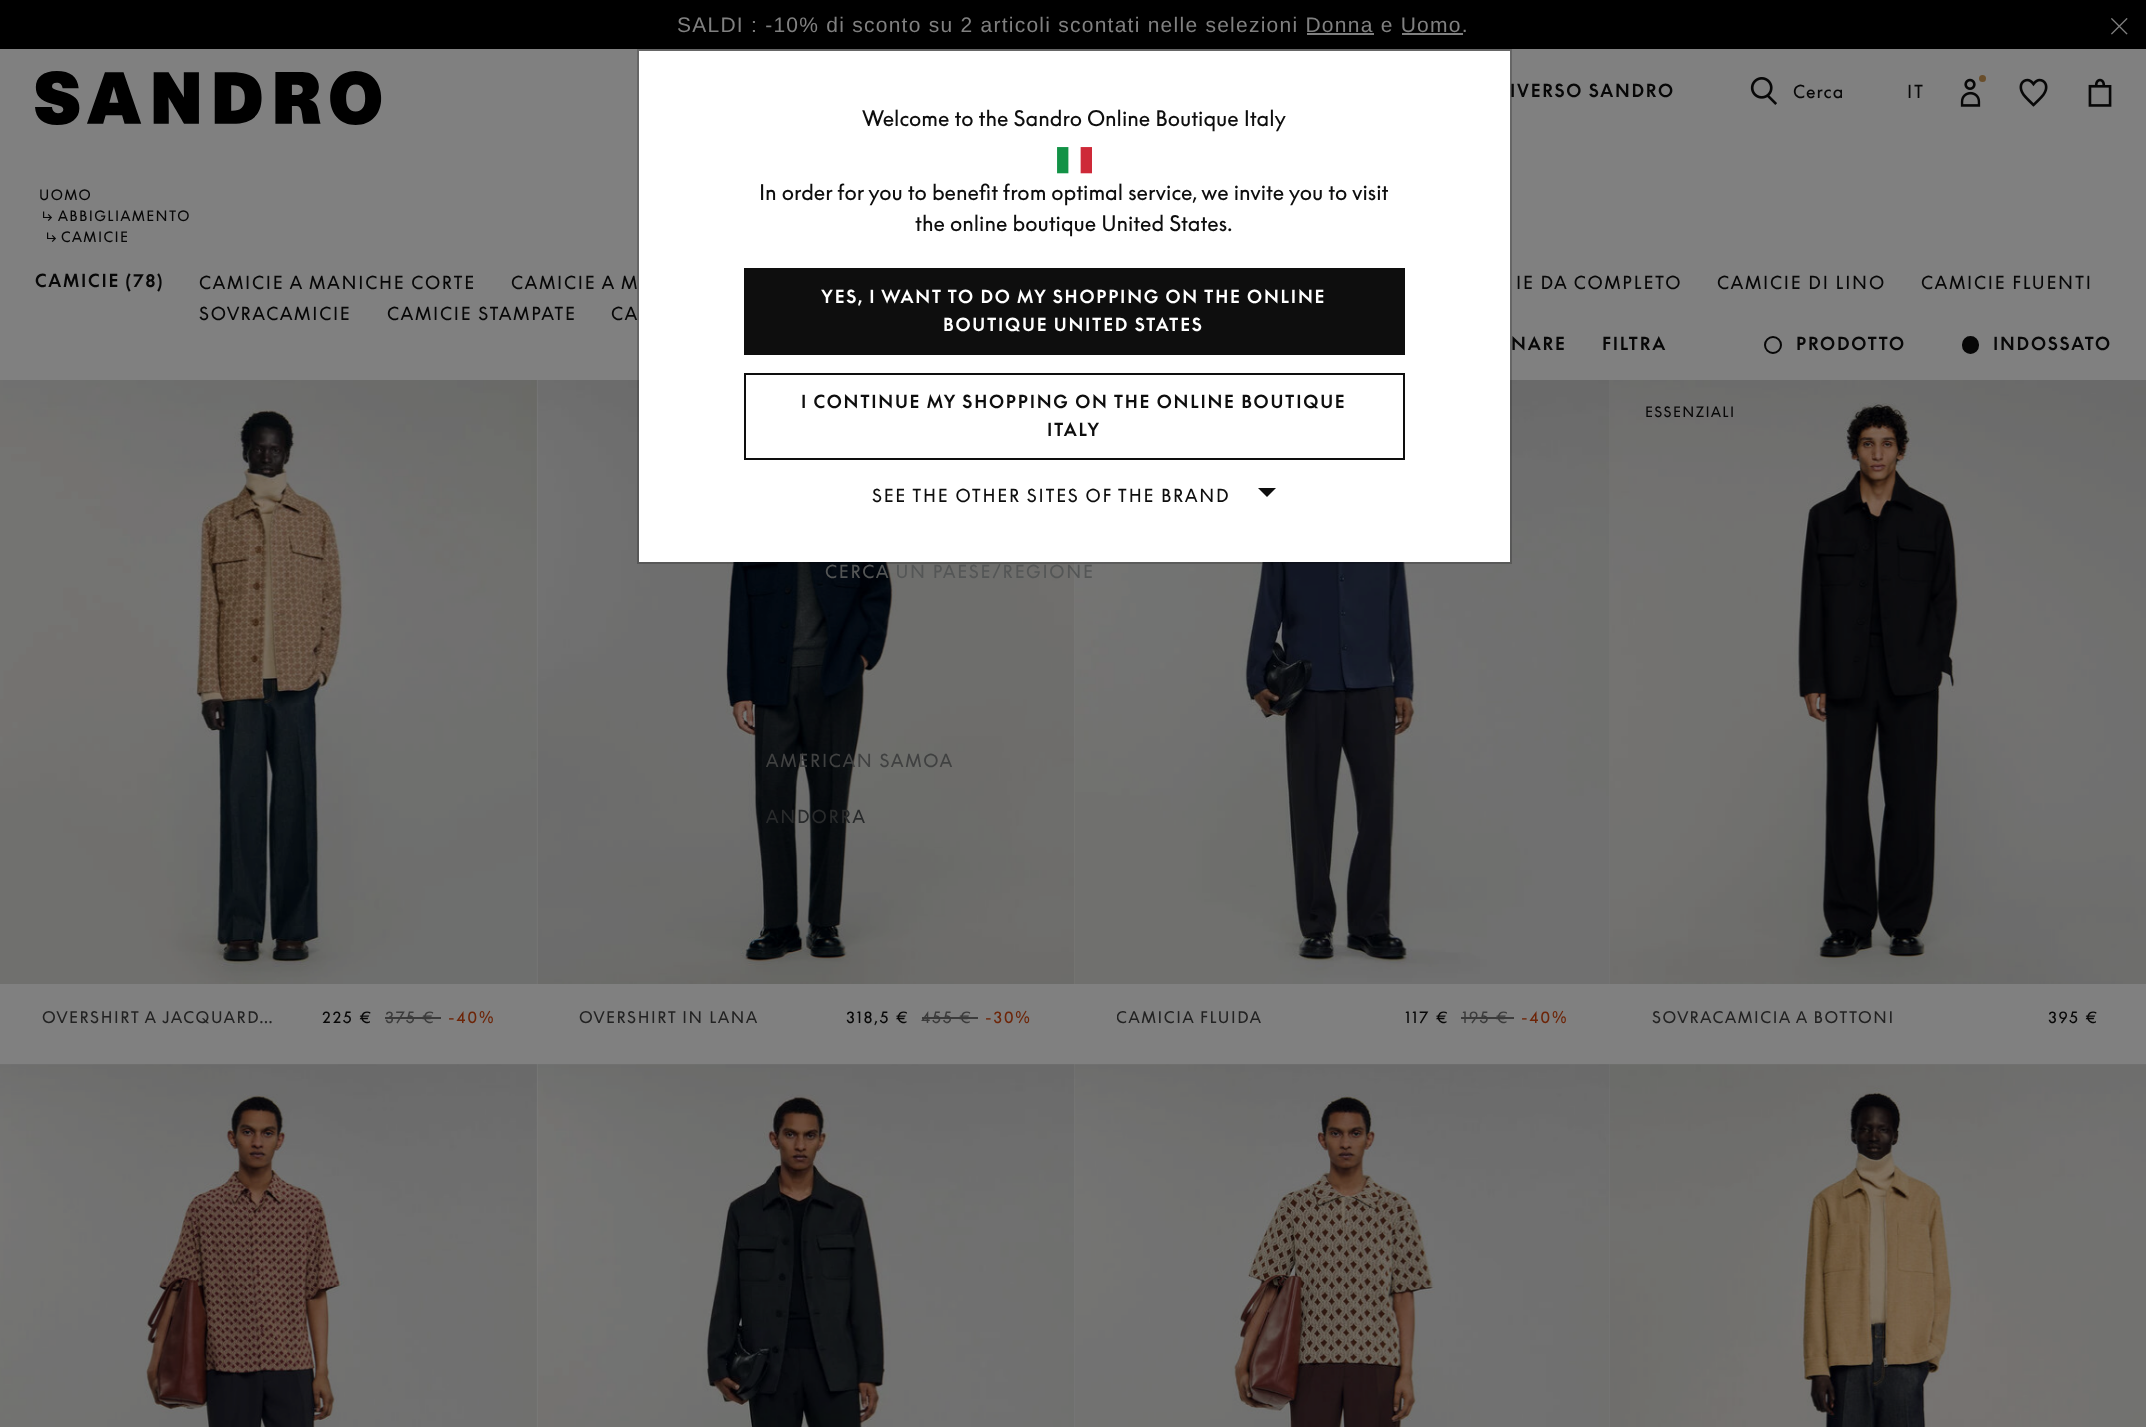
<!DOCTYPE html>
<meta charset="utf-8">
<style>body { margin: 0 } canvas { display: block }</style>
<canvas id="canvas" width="2146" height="1427"></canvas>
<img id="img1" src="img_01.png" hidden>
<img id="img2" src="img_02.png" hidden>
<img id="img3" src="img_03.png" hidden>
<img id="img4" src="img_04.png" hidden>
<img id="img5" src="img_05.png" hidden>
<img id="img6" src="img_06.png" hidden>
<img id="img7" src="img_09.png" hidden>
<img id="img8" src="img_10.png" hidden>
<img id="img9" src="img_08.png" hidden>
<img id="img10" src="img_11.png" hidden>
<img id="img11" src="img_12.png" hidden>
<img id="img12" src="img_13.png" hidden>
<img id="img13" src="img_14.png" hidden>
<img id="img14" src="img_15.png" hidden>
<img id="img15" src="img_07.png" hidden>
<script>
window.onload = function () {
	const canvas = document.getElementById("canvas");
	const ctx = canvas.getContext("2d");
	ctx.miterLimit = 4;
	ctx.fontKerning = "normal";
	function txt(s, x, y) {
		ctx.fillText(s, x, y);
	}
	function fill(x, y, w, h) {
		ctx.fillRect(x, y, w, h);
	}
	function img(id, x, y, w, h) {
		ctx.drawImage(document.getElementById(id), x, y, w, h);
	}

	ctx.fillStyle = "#808080";
	fill(0, 0, 2146, 1427);
	ctx.fillStyle = "#000000";
	fill(0, 0, 2146, 49);
	ctx.fillStyle = "#808080";
	fill(1307, 33, 67, 2);
	fill(1402, 33, 61, 2);
	img("img1", 2111, 18, 17, 17);
	img("img2", 35, 71, 347, 54);
	img("img3", 1750, 77, 27, 28);
	img("img4", 1960, 78, 21, 29);
	ctx.fillStyle = "#694E2B";
	ctx.beginPath();
	ctx.arc(1982.5, 78.5, 3.5, 0, Math.PI * 2);
	ctx.fill();
	img("img5", 2019, 78, 29, 29);
	img("img6", 2088, 78, 24, 29);
	img("img7", 537, 380, 538, 604);
	img("img8", 1074, 380, 536, 604);
	ctx.fillStyle = "#FFFFFF";
	fill(639, 51, 871, 511);
	ctx.beginPath();
	ctx.arc(1773, 345, 8, 0, Math.PI * 2);
	ctx.strokeStyle = "#070707";
	ctx.lineWidth = 2;
	ctx.stroke();
	ctx.fillStyle = "#070707";
	ctx.beginPath();
	ctx.roundRect(1963, 337, 15, 16, 7.5);
	ctx.fill();
	ctx.stroke();
	img("img9", 0, 380, 537, 604);
	ctx.fillStyle = "#3B3B3B";
	fill(385, 1017, 56, 2);
	fill(922, 1017, 56, 2);
	fill(1461, 1017, 53, 2);
	img("img10", 1610, 380, 536, 604);
	img("img11", 0, 1064, 537, 363);
	img("img12", 537, 1064, 538, 363);
	img("img13", 1074, 1064, 536, 363);
	img("img14", 1610, 1064, 536, 363);
	ctx.letterSpacing = "1.25px";
	ctx.font = "21px Liberation Sans";
	ctx.fillStyle = "#808080";
	txt("SALDI : -10% di sconto su 2 articoli scontati nelle selezioni Donna e Uomo.", 677, 32);
	ctx.letterSpacing = "1.75px";
	ctx.font = "bold 17.5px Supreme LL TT";
	ctx.fillStyle = "#070707";
	txt("IVERSO SANDRO", 1510, 97);
	ctx.letterSpacing = "1px";
	ctx.font = "17.5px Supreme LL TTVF";
	txt("Cerca", 1793, 98);
	ctx.letterSpacing = "1.75px";
	txt("IT", 1907, 98);
	ctx.fillStyle = "#404141";
	txt("AMERICAN SAMOA", 766, 767);
	ctx.fillStyle = "#282A2B";
	txt("ANDORRA", 766, 823);
	ctx.letterSpacing = "1.4px";
	ctx.font = "14px Supreme LL TTVF";
	ctx.fillStyle = "#070707";
	txt("UOMO", 39, 200);
	ctx.letterSpacing = "0px";
	txt("↳", 42, 221);
	ctx.letterSpacing = "1.4px";
	txt("ABBIGLIAMENTO", 58, 221);
	ctx.letterSpacing = "0px";
	txt("↳", 46, 242);
	ctx.letterSpacing = "1.4px";
	txt("CAMICIE", 61, 242);
	ctx.letterSpacing = "1.75px";
	ctx.font = "bold 17.5px Supreme LL TT";
	txt("CAMICIE (78)", 35, 287);
	ctx.font = "17.5px Supreme LL TTVF";
	txt("CAMICIE A MANICHE CORTE", 199, 289);
	txt("CAMICIE A M", 511, 289);
	txt("IE DA COMPLETO", 1516, 289);
	txt("CAMICIE DI LINO", 1717, 289);
	txt("CAMICIE FLUENTI", 1921, 289);
	txt("SOVRACAMICIE", 199, 320);
	txt("CAMICIE STAMPATE", 387, 320);
	txt("CA", 611, 320);
	ctx.strokeStyle = "rgba(0, 0, 0, 0.2)";
	ctx.strokeRect(638, 50, 873, 513);
	ctx.fillStyle = "#545656";
	txt("CERCA UN PAESE/REGIONE", 825, 578);
	ctx.fillStyle = "#0E0E0E";
	ctx.beginPath();
	ctx.moveTo(1258, 488);
	ctx.lineTo(1276, 488);
	ctx.lineTo(1267, 497);
	ctx.closePath();
	ctx.fill();
	txt("SEE THE OTHER SITES OF THE BRAND", 872, 502);
	ctx.strokeStyle = "#0E0E0E";
	ctx.strokeRect(745, 374, 659, 85);
	ctx.font = "bold 17.5px 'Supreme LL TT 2'";
	txt("ITALY", 1047, 436);
	txt("I CONTINUE MY SHOPPING ON THE ONLINE BOUTIQUE", 801, 408);
	fill(744, 268, 661, 87);
	ctx.fillStyle = "#FFFFFF";
	txt("BOUTIQUE UNITED STATES", 943, 331);
	txt("YES, I WANT TO DO MY SHOPPING ON THE ONLINE", 821, 303);
	ctx.letterSpacing = "0px";
	ctx.font = "21px Supreme LL TTVF";
	ctx.fillStyle = "#0E0E0E";
	txt("the online boutique United States.", 915, 231);
	txt("In order for you to benefit from optimal service, we invite you to visit", 759, 200);
	img("img15", 1057, 147, 35, 27);
	txt("Welcome to the Sandro Online Boutique Italy", 862, 126);
	ctx.letterSpacing = "1.75px";
	ctx.font = "bold 17.5px 'Supreme LL TT 2'";
	ctx.fillStyle = "#070707";
	txt("NARE", 1511, 350);
	txt("FILTRA", 1602, 350);
	ctx.font = "bold 17.5px Supreme LL TT";
	txt("PRODOTTO", 1796, 350);
	txt("INDOSSATO", 1993, 350);
	ctx.letterSpacing = "1.6px";
	ctx.font = "15.75px Supreme LL TTVF";
	ctx.fillStyle = "#222222";
	txt("OVERSHIRT A JACQUARD…", 42, 1023);
	ctx.fillStyle = "#070707";
	txt("225 €", 322, 1023);
	ctx.fillStyle = "#3B3B3B";
	txt("375 €", 385, 1023);
	ctx.fillStyle = "#6D2508";
	txt("-40%", 448, 1023);
	ctx.fillStyle = "#222222";
	txt("OVERSHIRT IN LANA", 579, 1023);
	ctx.fillStyle = "#070707";
	txt("318,5 €", 846, 1023);
	ctx.fillStyle = "#3B3B3B";
	txt("455 €", 921, 1023);
	ctx.fillStyle = "#6D2508";
	txt("-30%", 985, 1023);
	ctx.save();
	ctx.beginPath();
	ctx.rect(1117, 1005, 145, 24);
	ctx.clip();
	ctx.fillStyle = "#222222";
	txt("CAMICIA FLUIDA", 1116, 1023);
	ctx.restore();
	ctx.fillStyle = "#070707";
	txt("117 €", 1405, 1023);
	ctx.fillStyle = "#3B3B3B";
	txt("195 €", 1462, 1023);
	ctx.fillStyle = "#6D2508";
	txt("-40%", 1521, 1023);
	ctx.letterSpacing = "1.4px";
	ctx.font = "14px Supreme LL TTVF";
	ctx.fillStyle = "#070707";
	txt("ESSENZIALI", 1645, 417);
	ctx.letterSpacing = "1.6px";
	ctx.font = "15.75px Supreme LL TTVF";
	ctx.fillStyle = "#222222";
	txt("SOVRACAMICIA A BOTTONI", 1652, 1023);
	ctx.fillStyle = "#070707";
	txt("395 €", 2048, 1023);
};
</script>
